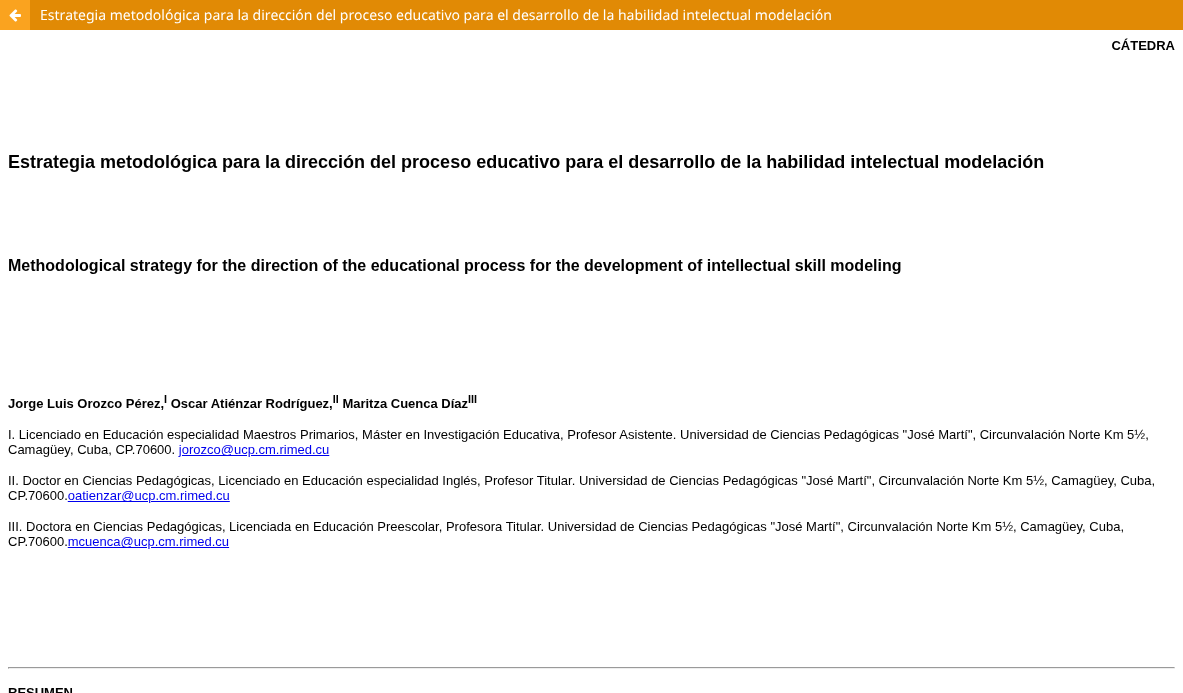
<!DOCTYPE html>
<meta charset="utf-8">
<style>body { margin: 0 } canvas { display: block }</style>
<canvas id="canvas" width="1183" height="693"></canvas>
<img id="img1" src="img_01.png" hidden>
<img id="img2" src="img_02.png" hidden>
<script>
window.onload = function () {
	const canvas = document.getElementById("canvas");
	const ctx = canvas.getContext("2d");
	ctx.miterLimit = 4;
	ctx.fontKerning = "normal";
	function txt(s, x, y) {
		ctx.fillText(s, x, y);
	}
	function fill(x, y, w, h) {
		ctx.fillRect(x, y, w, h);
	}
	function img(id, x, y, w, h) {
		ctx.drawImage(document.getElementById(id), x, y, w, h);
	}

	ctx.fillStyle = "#FFFFFF";
	fill(0, 0, 1183, 693);
	ctx.fillStyle = "#E18A05";
	fill(30, 0, 1153, 30);
	ctx.fillStyle = "#FAA31F";
	fill(0, 0, 30, 30);
	img("img1", 9, 9, 12, 13);
	img("img2", 8, 38, 1167, 655);
	ctx.font = "14px Noto Sans";
	ctx.fillStyle = "#FFFFFF";
	txt("Estrategia metodológica para la dirección del proceso educativo para el desarrollo de la habilidad intelectual modelación", 40, 20);
};
</script>
